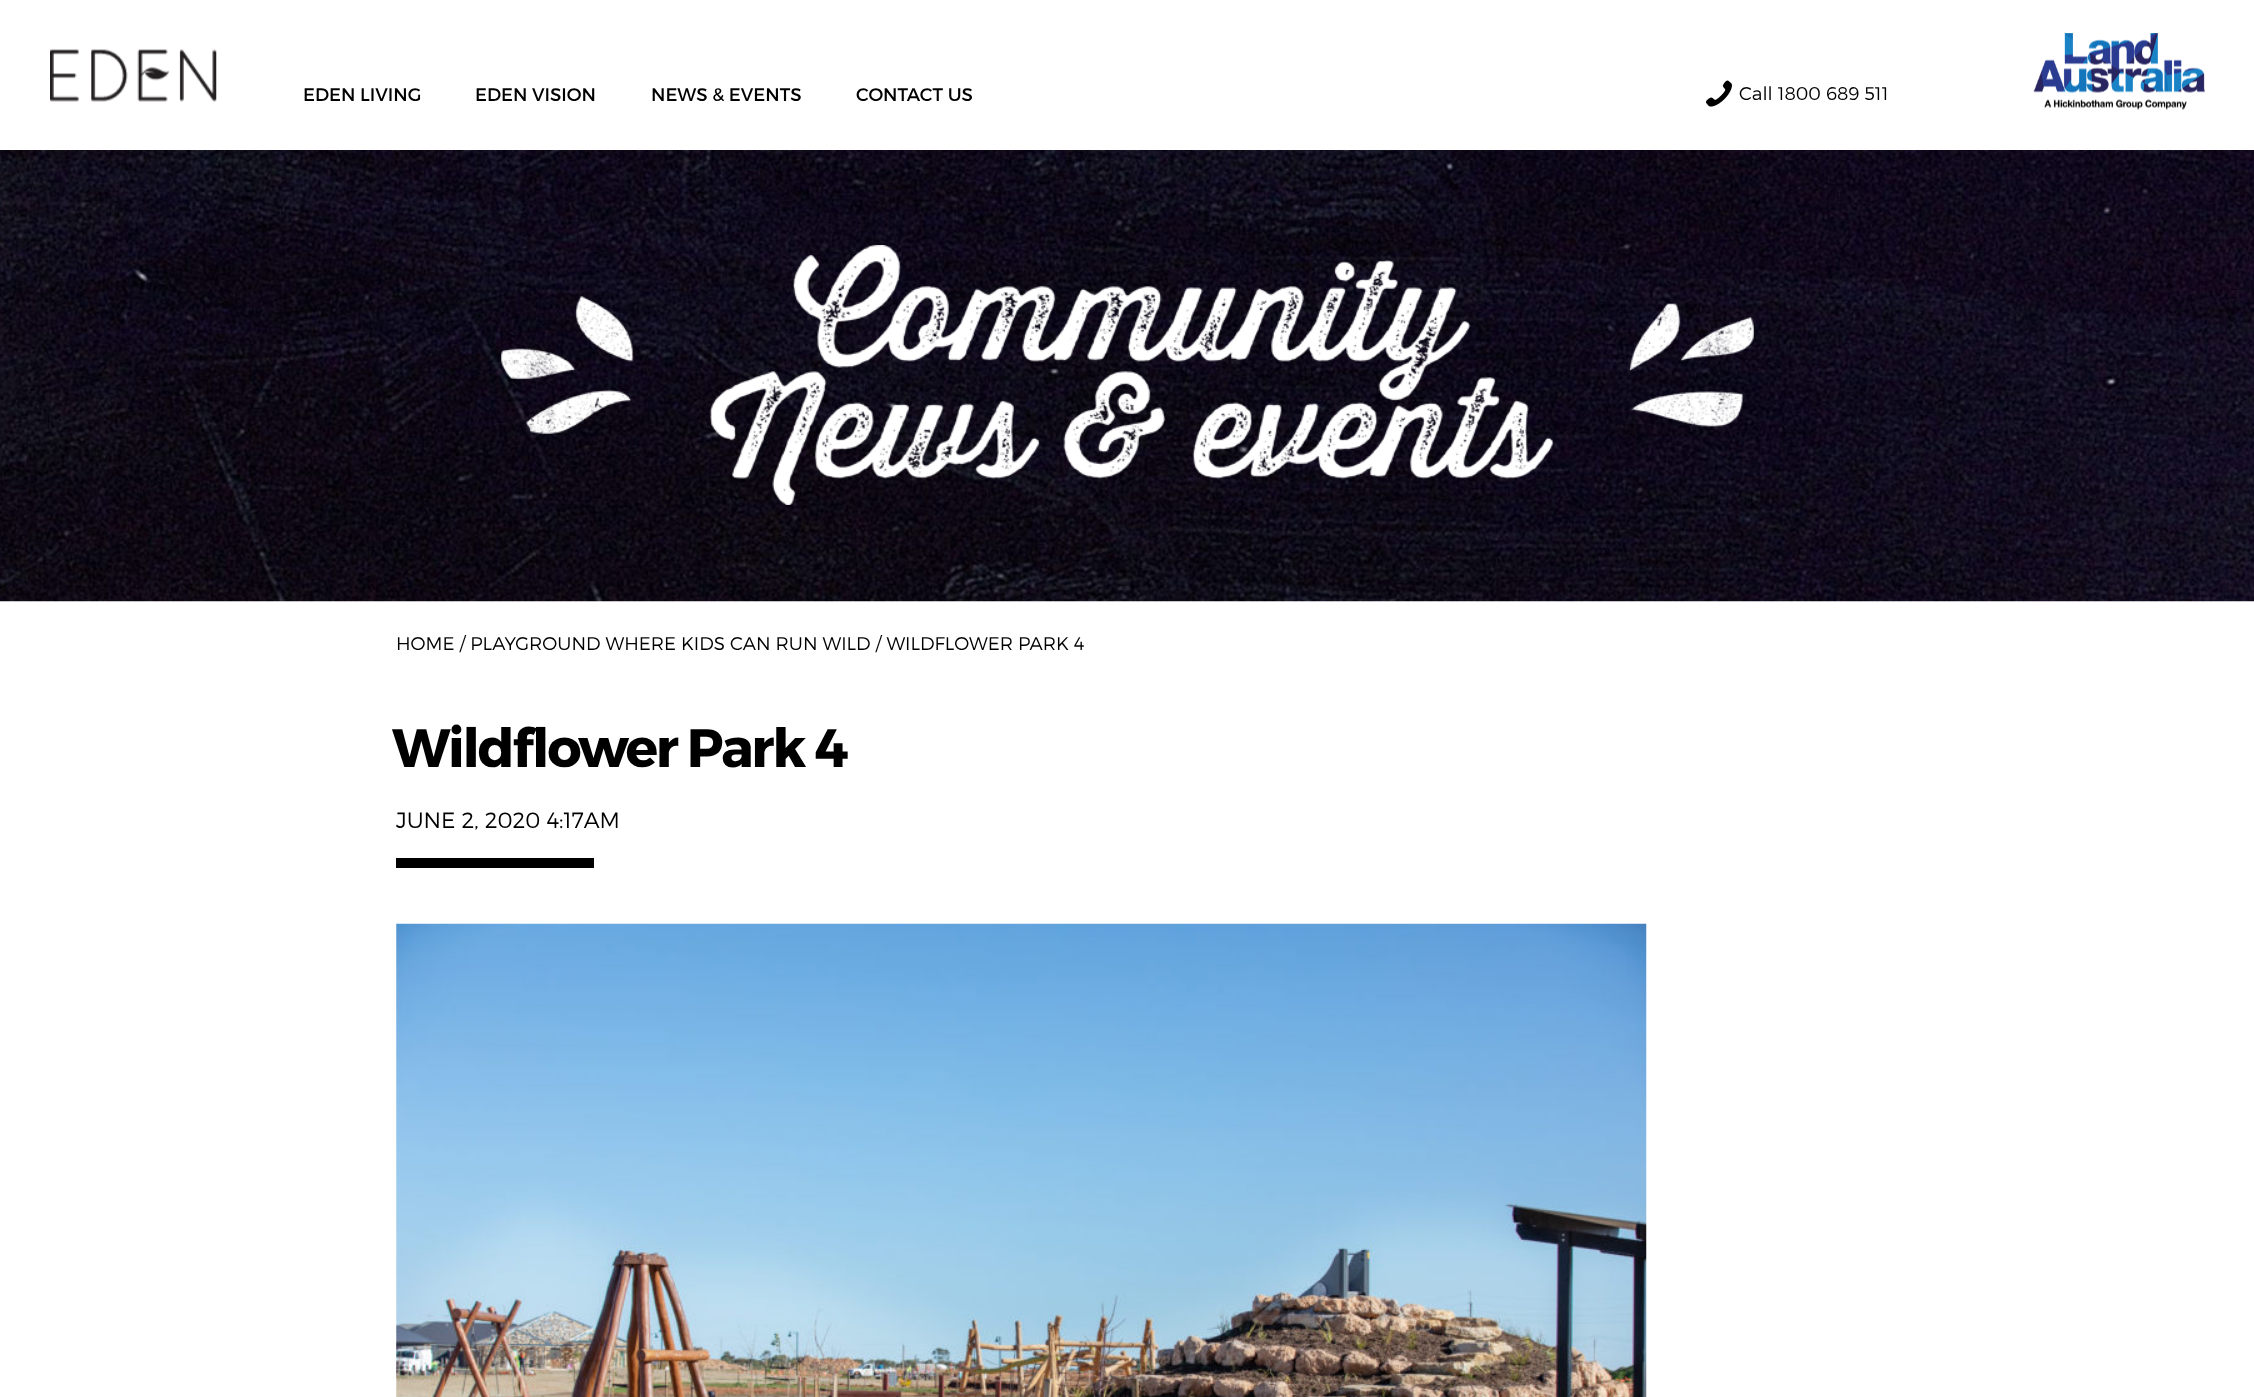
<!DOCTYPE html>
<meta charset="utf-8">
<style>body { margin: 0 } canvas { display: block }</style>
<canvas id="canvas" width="2254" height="1397"></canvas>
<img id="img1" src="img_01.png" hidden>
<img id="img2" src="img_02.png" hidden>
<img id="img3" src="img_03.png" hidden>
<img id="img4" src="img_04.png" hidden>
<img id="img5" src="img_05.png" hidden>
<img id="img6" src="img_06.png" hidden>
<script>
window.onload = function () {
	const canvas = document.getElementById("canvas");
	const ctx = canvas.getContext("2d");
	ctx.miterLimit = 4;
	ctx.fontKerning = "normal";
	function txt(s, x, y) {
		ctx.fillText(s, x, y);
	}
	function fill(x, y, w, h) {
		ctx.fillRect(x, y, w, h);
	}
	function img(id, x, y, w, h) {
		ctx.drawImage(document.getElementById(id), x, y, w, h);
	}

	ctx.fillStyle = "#FFFFFF";
	fill(0, 0, 2254, 1397);
	img("img1", 50, 49, 167, 53);
	img("img2", 1706, 80, 26, 27);
	img("img3", 2033, 33, 172, 77);
	img("img4", 0, 150, 2254, 452);
	img("img5", 501, 245, 1253, 260);
	ctx.fillStyle = "#000000";
	fill(396, 858, 198, 10);
	img("img6", 396, 923, 1251, 474);
	ctx.font = "18.75px Montserrat";
	txt("EDEN LIVING", 303, 101);
	txt("EDEN VISION", 475, 101);
	txt("NEWS & EVENTS", 651, 101);
	txt("CONTACT US", 856, 101);
	ctx.font = "300 18.75px Montserrat";
	txt("Call 1800 689 511", 1739, 100);
	txt("HOME / PLAYGROUND WHERE KIDS CAN RUN WILD / WILDFLOWER PARK 4", 396, 650);
	ctx.letterSpacing = "-2.25px";
	ctx.font = "bold 56.25px Montserrat";
	txt("Wildflower Park 4", 392, 767);
	ctx.letterSpacing = "0px";
	ctx.font = "300 22.5px Montserrat";
	txt("JUNE 2, 2020 4:17AM", 396, 828);
};
</script>
